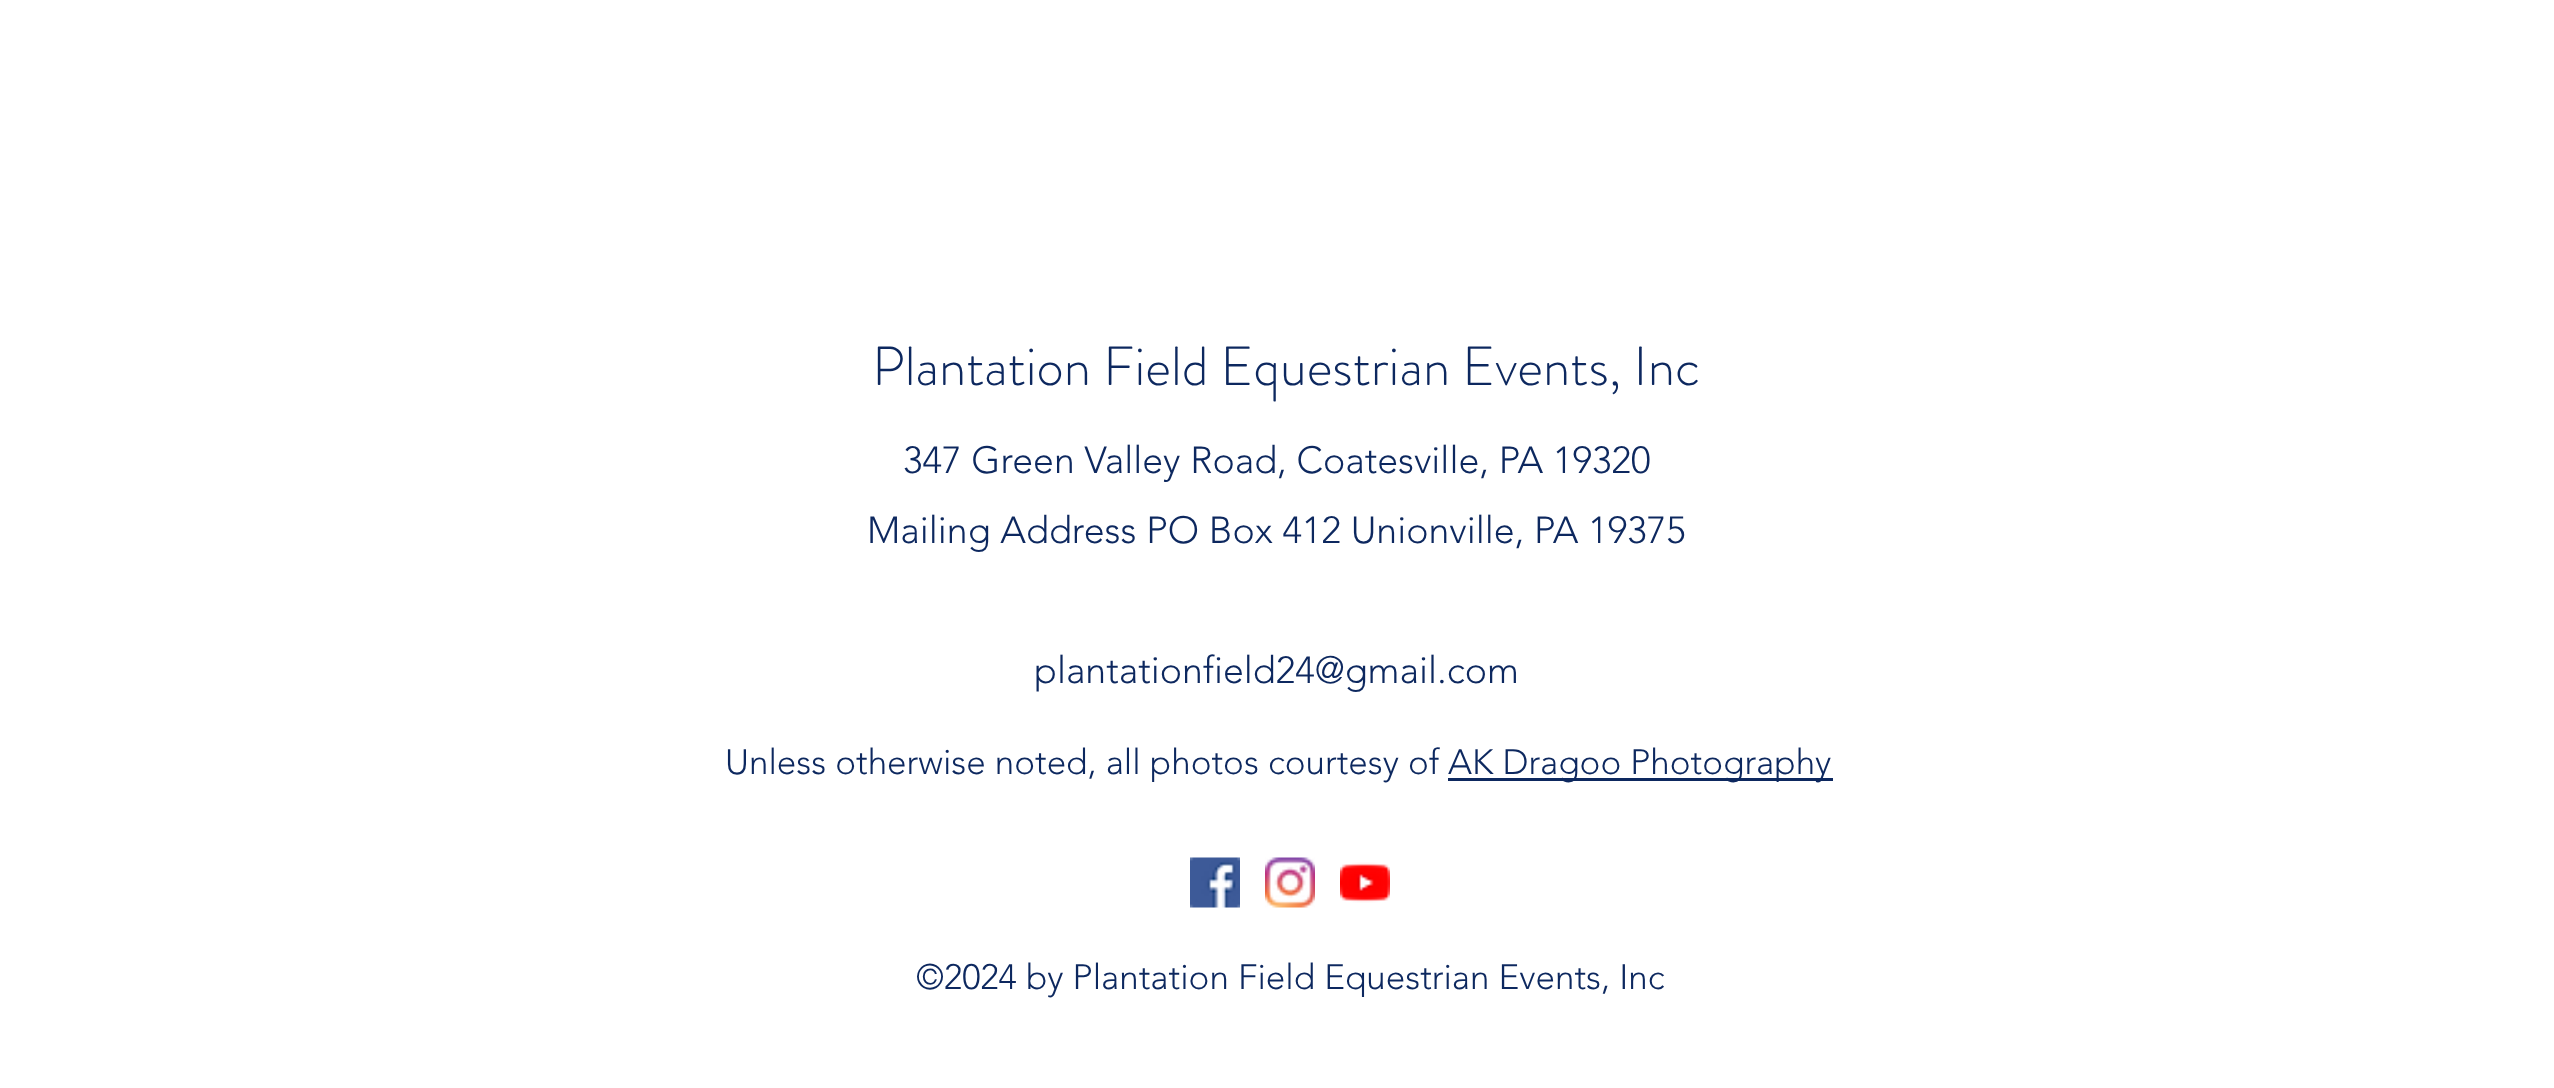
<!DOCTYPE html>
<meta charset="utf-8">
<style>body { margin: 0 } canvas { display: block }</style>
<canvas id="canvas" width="2554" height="1088"></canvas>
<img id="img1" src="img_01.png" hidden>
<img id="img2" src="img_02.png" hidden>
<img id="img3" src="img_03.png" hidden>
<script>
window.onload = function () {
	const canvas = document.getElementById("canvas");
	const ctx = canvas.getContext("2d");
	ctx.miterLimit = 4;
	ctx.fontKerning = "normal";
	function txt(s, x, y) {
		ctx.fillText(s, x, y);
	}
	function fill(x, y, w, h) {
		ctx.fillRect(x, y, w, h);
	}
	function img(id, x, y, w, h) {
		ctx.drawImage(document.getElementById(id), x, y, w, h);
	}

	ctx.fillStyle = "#FFFFFF";
	fill(0, 0, 2554, 1088);
	ctx.fillStyle = "#0D285F";
	fill(1448, 778, 385, 3);
	img("img1", 1190, 857, 50, 51);
	img("img2", 1265, 857, 50, 51);
	img("img3", 1340, 862, 50, 41);
	ctx.font = "300 55px 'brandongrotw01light'";
	txt("Plantation Field Equestrian Events, Inc", 872, 385);
	ctx.font = "300 37.5px 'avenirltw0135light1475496'";
	txt("347 Green Valley Road, Coatesville, PA 19320", 903, 473);
	txt("Mailing Address PO Box 412 Unionville, PA 19375", 867, 543);
	txt("plantationfield24@gmail.com", 1034, 683);
	ctx.font = "300 35px 'avenirltw0135light1475496'";
	txt("Unless otherwise noted, all photos courtesy of", 725, 774);
	txt("AK Dragoo Photography", 1448, 774);
	txt("©2024 by Plantation Field Equestrian Events, Inc", 916, 989);
};
</script>
